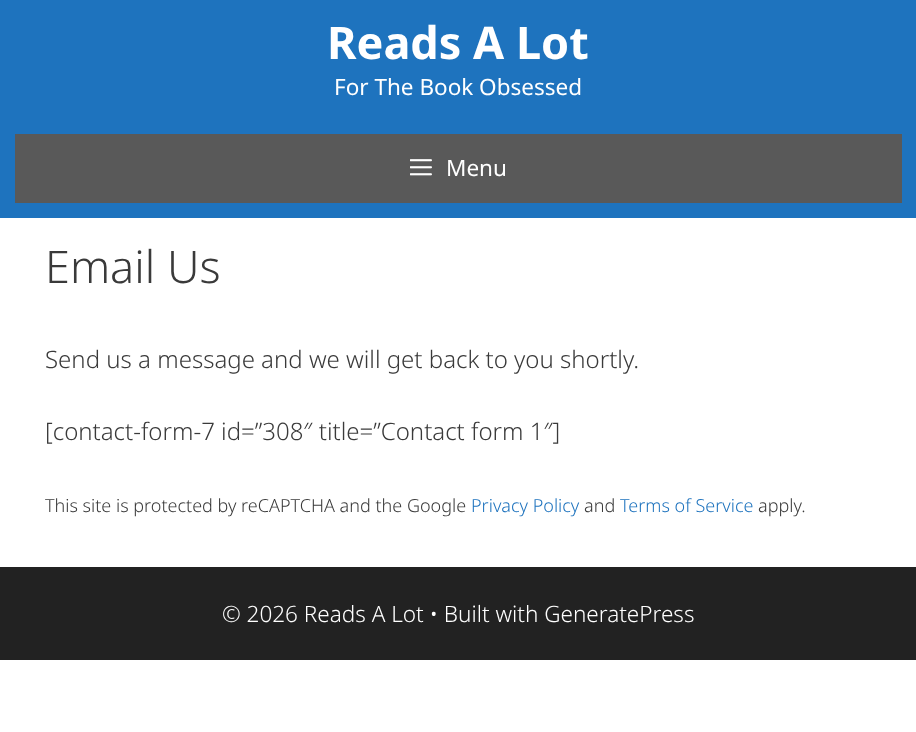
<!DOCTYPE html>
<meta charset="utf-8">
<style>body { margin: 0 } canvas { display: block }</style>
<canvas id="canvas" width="916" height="732"></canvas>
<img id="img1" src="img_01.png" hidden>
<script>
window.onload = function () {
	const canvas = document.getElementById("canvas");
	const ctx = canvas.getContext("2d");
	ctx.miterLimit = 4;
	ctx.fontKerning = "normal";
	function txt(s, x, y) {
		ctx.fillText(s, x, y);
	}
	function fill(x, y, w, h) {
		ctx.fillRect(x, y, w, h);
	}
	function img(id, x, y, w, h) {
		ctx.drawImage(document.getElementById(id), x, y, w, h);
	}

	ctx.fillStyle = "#FFFFFF";
	fill(0, 0, 916, 732);
	ctx.fillStyle = "#1E73BE";
	fill(0, 0, 916, 218);
	ctx.fillStyle = "#595959";
	fill(15, 134, 887, 69);
	img("img1", 410, 159, 22, 17);
	ctx.fillStyle = "#222222";
	fill(0, 567, 916, 93);
	ctx.font = "bold 45px Noto Sans";
	ctx.fillStyle = "#FFFFFF";
	txt("Reads A Lot", 327, 59);
	ctx.font = "22.5px Noto Sans";
	txt("For The Book Obsessed", 334, 95);
	txt("Menu", 446, 176);
	ctx.font = "300 45px Noto Sans";
	ctx.fillStyle = "#3A3A3A";
	txt("Email Us", 45, 283);
	ctx.font = "300 24px Noto Sans";
	txt("Send us a message and we will get back to you shortly.", 45, 368);
	txt("[contact-form-7 id=”308″ title=”Contact form 1″]", 45, 440);
	ctx.font = "300 18px Noto Sans";
	txt("This site is protected by reCAPTCHA and the Google", 45, 512);
	ctx.fillStyle = "#1E73BE";
	txt("Privacy Policy", 471, 512);
	ctx.fillStyle = "#3A3A3A";
	txt("and", 584, 512);
	ctx.fillStyle = "#1E73BE";
	txt("Terms of Service", 620, 512);
	ctx.fillStyle = "#3A3A3A";
	txt("apply.", 758, 512);
	ctx.font = "300 22.5px Noto Sans";
	ctx.fillStyle = "#FFFFFF";
	txt("© 2026 Reads A Lot • Built with GeneratePress", 222, 622);
};
</script>
